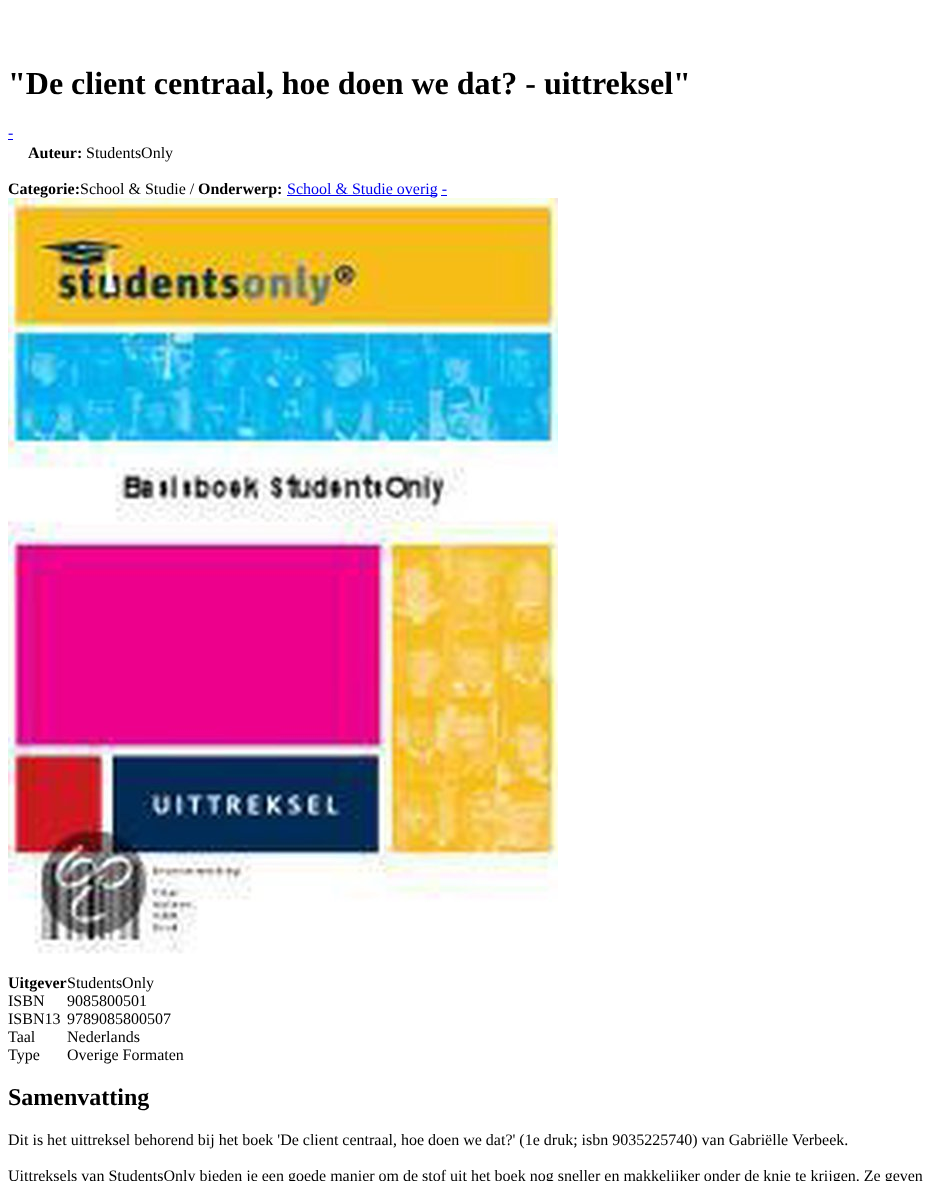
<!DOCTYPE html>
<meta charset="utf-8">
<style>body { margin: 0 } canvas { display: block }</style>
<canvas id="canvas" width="949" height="1181"></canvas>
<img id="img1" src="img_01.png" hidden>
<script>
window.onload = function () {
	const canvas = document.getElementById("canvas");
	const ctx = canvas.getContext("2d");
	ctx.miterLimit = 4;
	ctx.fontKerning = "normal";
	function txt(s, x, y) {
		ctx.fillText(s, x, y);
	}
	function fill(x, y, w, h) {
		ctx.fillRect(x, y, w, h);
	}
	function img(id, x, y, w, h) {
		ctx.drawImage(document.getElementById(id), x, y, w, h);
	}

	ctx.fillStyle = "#FFFFFF";
	fill(0, 0, 949, 1181);
	ctx.fillStyle = "#0000EE";
	fill(8, 139, 5, 1);
	fill(287, 195, 150, 1);
	fill(441, 195, 6, 1);
	img("img1", 8, 198, 550, 756);
	ctx.font = "bold 32px Liberation Serif";
	ctx.fillStyle = "#000000";
	txt("\"De client centraal, hoe doen we dat? - uittreksel\"", 8, 94);
	ctx.font = "16px Liberation Serif";
	ctx.fillStyle = "#0000EE";
	txt("-", 8, 138);
	ctx.font = "bold 16px Liberation Serif";
	ctx.fillStyle = "#000000";
	txt("Auteur:", 28, 158);
	ctx.font = "16px Liberation Serif";
	txt("StudentsOnly", 86, 158);
	ctx.font = "bold 16px Liberation Serif";
	txt("Categorie:", 8, 194);
	ctx.font = "16px Liberation Serif";
	txt("School & Studie /", 80, 194);
	ctx.font = "bold 16px Liberation Serif";
	txt("Onderwerp:", 198, 194);
	ctx.font = "16px Liberation Serif";
	ctx.fillStyle = "#0000EE";
	txt("School & Studie overig -", 287, 194);
	ctx.font = "bold 16px Liberation Serif";
	ctx.fillStyle = "#000000";
	txt("Uitgever", 8, 988);
	ctx.font = "16px Liberation Serif";
	txt("StudentsOnly", 67, 988);
	txt("ISBN", 8, 1006);
	txt("9085800501", 67, 1006);
	txt("ISBN13", 8, 1024);
	txt("9789085800507", 67, 1024);
	txt("Taal", 8, 1042);
	txt("Nederlands", 67, 1042);
	txt("Type", 8, 1060);
	txt("Overige Formaten", 67, 1060);
	ctx.font = "bold 24px Liberation Serif";
	txt("Samenvatting", 8, 1105);
	ctx.font = "16px Liberation Serif";
	txt("Dit is het uittreksel behorend bij het boek 'De client centraal, hoe doen we dat?' (1e druk; isbn 9035225740) van Gabriëlle Verbeek.", 8, 1145);
	txt("Uittreksels van StudentsOnly bieden je een goede manier om de stof uit het boek nog sneller en makkelijker onder de knie te krijgen. Ze geven", 8, 1181);
};
</script>
